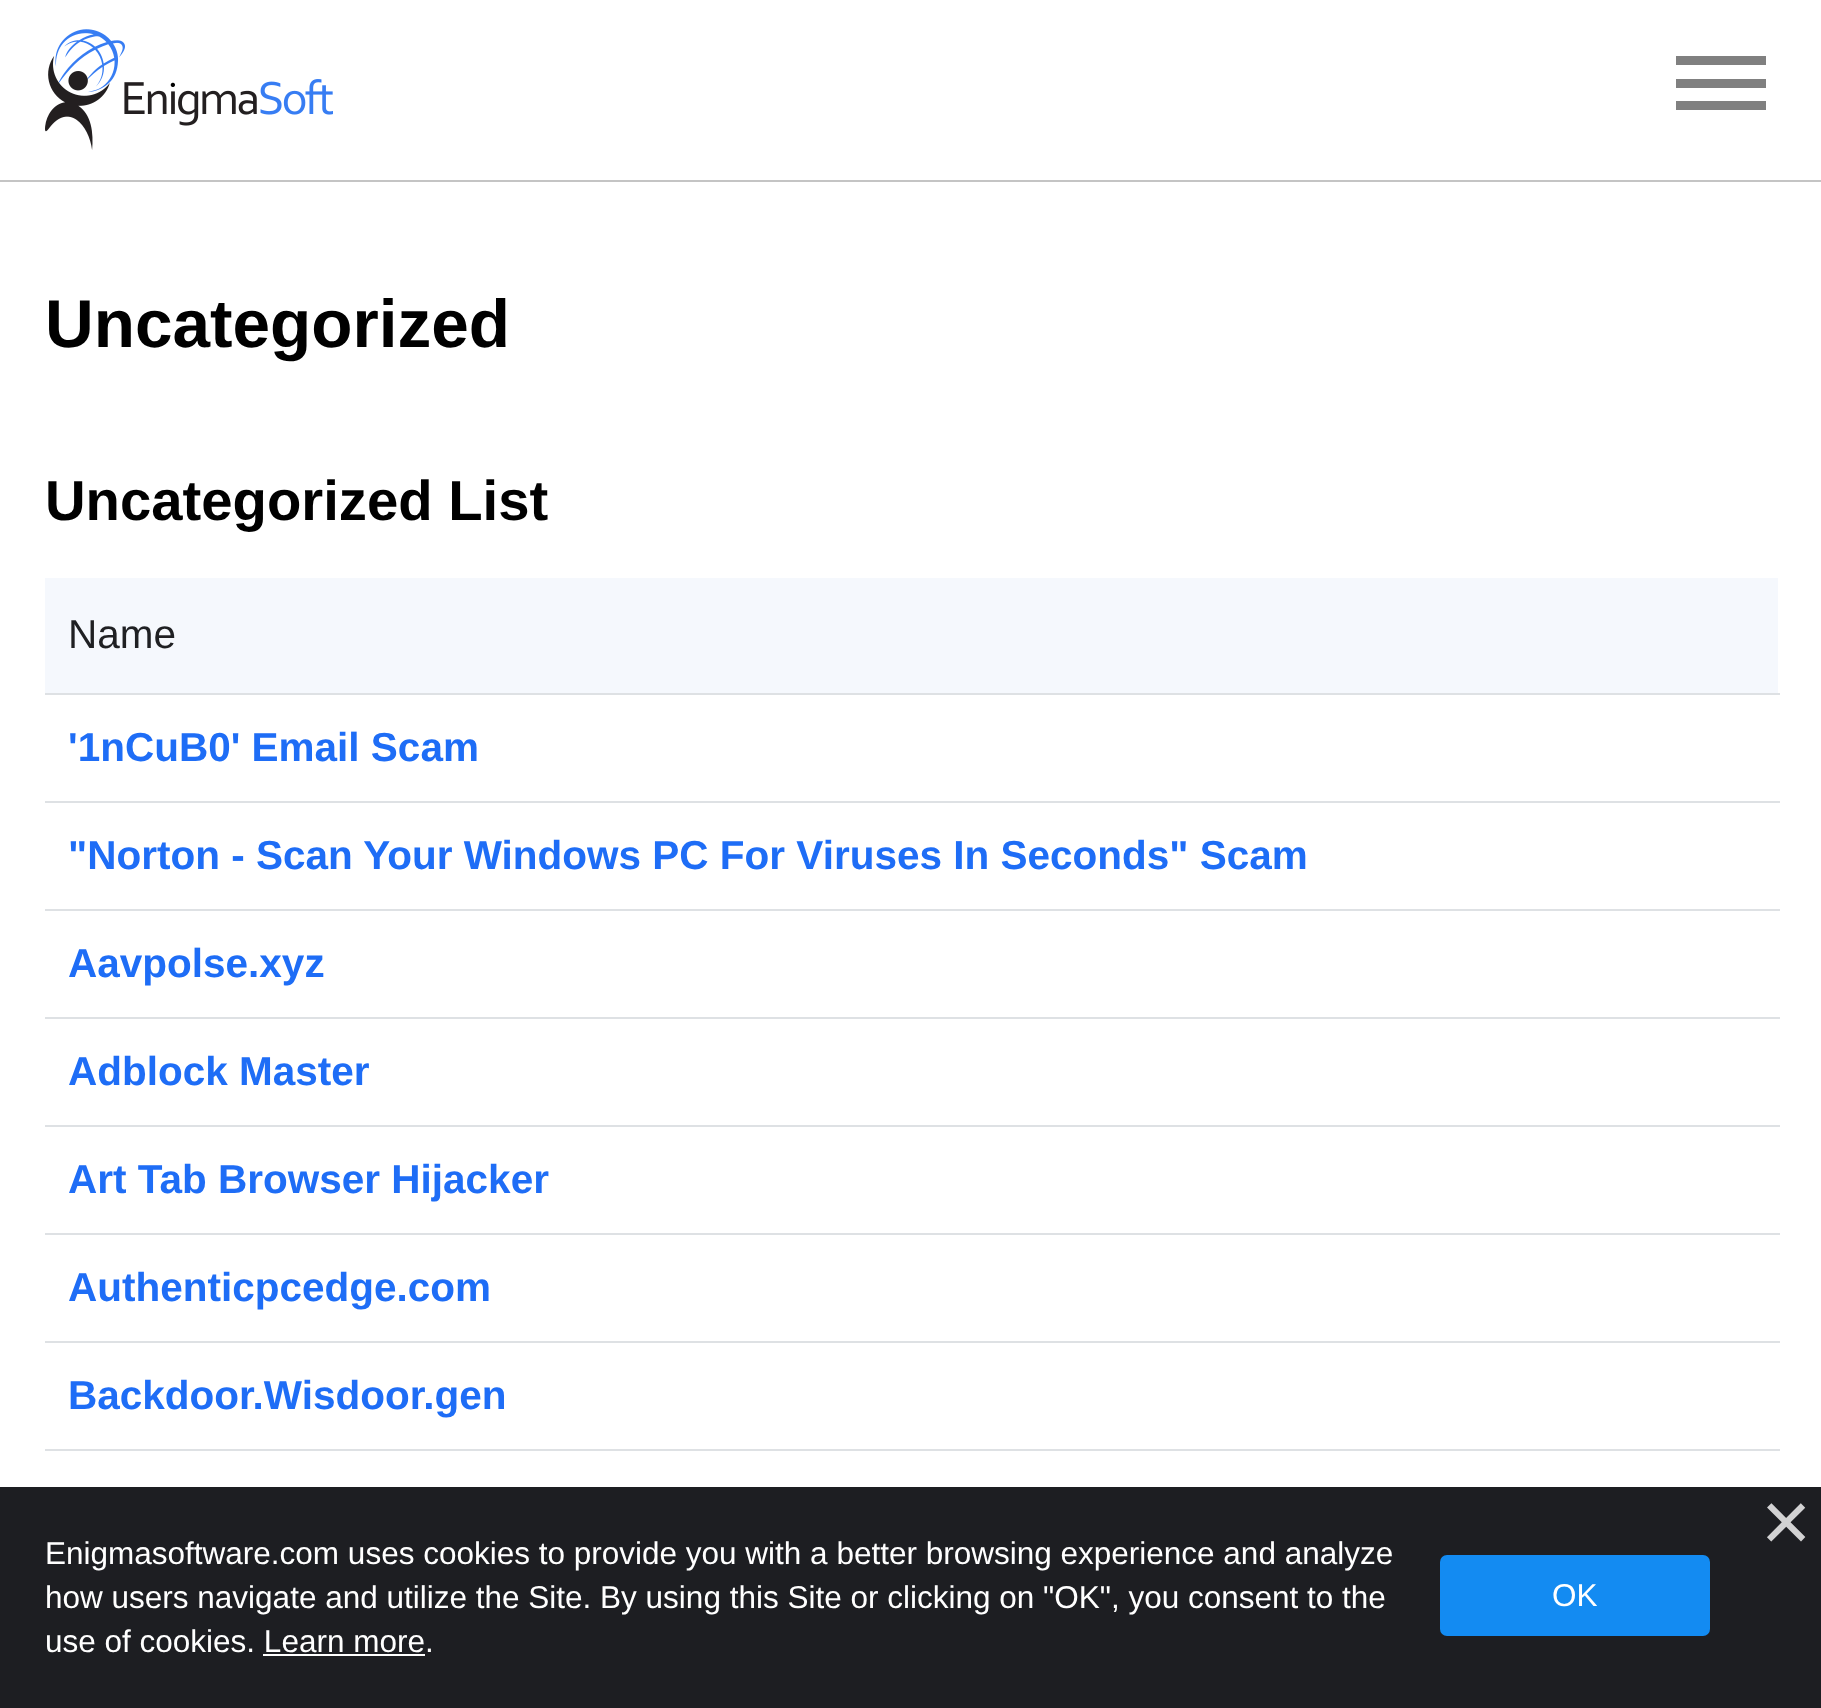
<!DOCTYPE html>
<meta charset="utf-8">
<style>body { margin: 0 } canvas { display: block }</style>
<canvas id="canvas" width="1821" height="1708"></canvas>
<img id="img1" src="img_01.png" hidden>
<script>
window.onload = function () {
	const canvas = document.getElementById("canvas");
	const ctx = canvas.getContext("2d");
	ctx.miterLimit = 4;
	ctx.fontKerning = "normal";
	function txt(s, x, y) {
		ctx.fillText(s, x, y);
	}
	function fill(x, y, w, h) {
		ctx.fillRect(x, y, w, h);
	}
	function round(x, y, w, h, r) {
		ctx.beginPath();
		ctx.roundRect(x, y, w, h, r);
		ctx.fill();
	}
	function img(id, x, y, w, h) {
		ctx.drawImage(document.getElementById(id), x, y, w, h);
	}

	ctx.fillStyle = "#FFFFFF";
	fill(0, 0, 1821, 1708);
	ctx.fillStyle = "#C4C4C4";
	fill(0, 180, 1821, 2);
	img("img1", 45, 29, 288, 121);
	ctx.fillStyle = "#808080";
	fill(1676, 56, 90, 9);
	fill(1676, 79, 90, 9);
	fill(1676, 101, 90, 9);
	ctx.fillStyle = "#DEE1E4";
	fill(45, 693, 1735, 2);
	ctx.fillStyle = "#F5F8FD";
	fill(45, 578, 1733, 115);
	ctx.fillStyle = "#DEE1E4";
	fill(45, 801, 1735, 2);
	fill(45, 909, 1735, 2);
	fill(45, 1017, 1735, 2);
	fill(45, 1125, 1735, 2);
	fill(45, 1233, 1735, 2);
	fill(45, 1341, 1735, 2);
	fill(45, 1449, 1735, 2);
	ctx.fillStyle = "#1D1E22";
	fill(0, 1487, 1821, 221);
	ctx.fillStyle = "#138BF2";
	round(1440, 1555, 270, 81, 7);
	ctx.fillStyle = "#FFFFFF";
	fill(263, 1654, 162, 2);
	ctx.font = "bold 67.5px Liberation Sans";
	ctx.fillStyle = "#000000";
	txt("Uncategorized", 45, 347);
	ctx.font = "bold 56.25px Liberation Sans";
	txt("Uncategorized List", 45, 520);
	ctx.font = "40.5px Liberation Sans";
	ctx.fillStyle = "#1F2023";
	txt("Name", 68, 648);
	ctx.font = "bold 40.5px Liberation Sans";
	ctx.fillStyle = "#1E6DF6";
	txt("'1nCuB0' Email Scam", 68, 761);
	txt("\"Norton - Scan Your Windows PC For Viruses In Seconds\" Scam", 68, 869);
	txt("Aavpolse.xyz", 68, 977);
	txt("Adblock Master", 68, 1085);
	txt("Art Tab Browser Hijacker", 68, 1193);
	txt("Authenticpcedge.com", 68, 1301);
	txt("Backdoor.Wisdoor.gen", 68, 1409);
	ctx.font = "86px Liberation Sans";
	ctx.fillStyle = "#D2D2D3";
	txt("×", 1761, 1551);
	ctx.font = "31.5px Liberation Sans";
	ctx.fillStyle = "#FFFFFF";
	txt("Enigmasoftware.com uses cookies to provide you with a better browsing experience and analyze", 45, 1564);
	txt("how users navigate and utilize the Site. By using this Site or clicking on \"OK\", you consent to the", 45, 1608);
	txt("OK", 1552, 1606);
	txt("use of cookies. Learn more.", 45, 1652);
};
</script>
